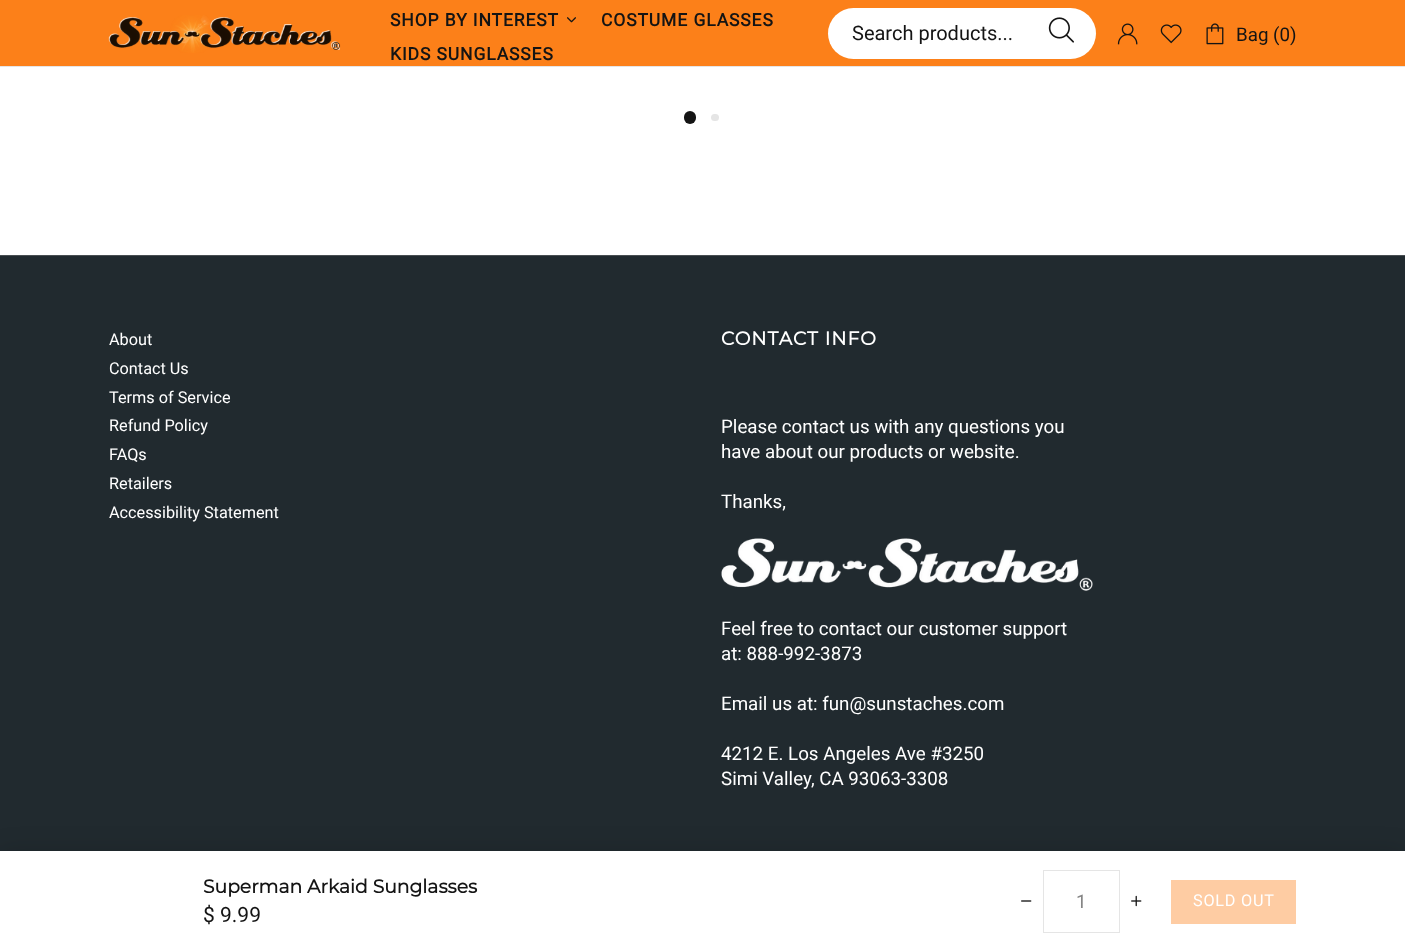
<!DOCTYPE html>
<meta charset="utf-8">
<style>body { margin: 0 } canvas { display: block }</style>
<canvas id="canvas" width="1405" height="951"></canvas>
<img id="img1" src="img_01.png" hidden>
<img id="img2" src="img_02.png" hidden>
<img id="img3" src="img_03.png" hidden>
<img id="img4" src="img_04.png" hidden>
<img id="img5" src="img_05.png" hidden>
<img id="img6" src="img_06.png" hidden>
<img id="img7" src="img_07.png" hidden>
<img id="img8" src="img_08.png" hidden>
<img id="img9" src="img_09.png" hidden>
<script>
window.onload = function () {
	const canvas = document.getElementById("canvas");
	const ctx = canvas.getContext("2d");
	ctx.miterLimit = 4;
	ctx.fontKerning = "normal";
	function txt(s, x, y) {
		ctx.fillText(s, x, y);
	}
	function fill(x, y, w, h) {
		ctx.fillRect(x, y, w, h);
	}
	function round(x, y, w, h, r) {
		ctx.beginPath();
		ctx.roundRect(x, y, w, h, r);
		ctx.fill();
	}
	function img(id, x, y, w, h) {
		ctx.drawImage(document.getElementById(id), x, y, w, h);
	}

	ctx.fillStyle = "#FFFFFF";
	fill(0, 0, 1405, 951);
	ctx.fillStyle = "#FC8019";
	fill(0, 0, 1405, 66);
	img("img1", 108, 15, 233, 38);
	img("img2", 567, 17, 9, 6);
	ctx.fillStyle = "#FFFFFF";
	round(828, 8, 268, 51, 25.5);
	img("img3", 1048, 17, 26, 26);
	ctx.fillStyle = "#E5E5E5";
	fill(0, 66, 1405, 1);
	img("img4", 1117, 23, 21, 22);
	img("img5", 1160, 24, 22, 20);
	img("img6", 1206, 23, 18, 22);
	ctx.fillStyle = "#141414";
	round(684, 111, 12, 13, 6);
	ctx.fillStyle = "#E5E5E5";
	round(711, 114, 8, 7, 3.5);
	ctx.fillStyle = "#212A2F";
	fill(0, 256, 1405, 595);
	ctx.fillStyle = "#484E52";
	fill(0, 255, 1405, 1);
	img("img7", 721, 538, 372, 53);
	ctx.fillStyle = "rgba(0, 0, 0, 0.15)";
	ctx.filter = "blur(12.5px)";
	ctx.beginPath();
	ctx.rect(0, 851, 1405, 100);
	ctx.fill();
	ctx.filter = "none";
	ctx.fillStyle = "#FFFFFF";
	fill(0, 851, 1405, 100);
	img("img8", 1021, 900, 11, 2);
	ctx.strokeStyle = "#E5E5E5";
	ctx.strokeRect(1043.5, 870.5, 76, 62);
	img("img9", 1131, 895, 11, 12);
	ctx.fillStyle = "#FECCA3";
	fill(1171, 880, 125, 44);
	ctx.letterSpacing = "0.9px";
	ctx.font = "bold 17.5px Roboto";
	ctx.fillStyle = "#141414";
	txt("SHOP BY INTEREST", 390, 26);
	txt("COSTUME GLASSES", 601, 26);
	txt("KIDS SUNGLASSES", 390, 60);
	ctx.letterSpacing = "0px";
	ctx.font = "20px Roboto";
	txt("Search products...", 852, 40);
	ctx.font = "18.75px Roboto";
	txt("Bag (0)", 1236, 41);
	ctx.font = "16.25px Roboto";
	ctx.fillStyle = "#FFFFFF";
	txt("About", 109, 345);
	txt("Contact Us", 109, 374);
	txt("Terms of Service", 109, 403);
	txt("Refund Policy", 109, 431);
	txt("FAQs", 109, 460);
	txt("Retailers", 109, 489);
	txt("Accessibility Statement", 109, 518);
	ctx.letterSpacing = "1px";
	ctx.font = "bold 18.75px Montserrat";
	txt("CONTACT INFO", 721, 345);
	ctx.letterSpacing = "0px";
	ctx.font = "18.75px Roboto";
	txt("Please contact us with any questions you", 721, 433);
	txt("have about our products or website.", 721, 458);
	txt("Thanks,", 721, 508);
	txt("Feel free to contact our customer support", 721, 635);
	txt("at: 888-992-3873", 721, 660);
	txt("Email us at: fun@sunstaches.com", 721, 710);
	txt("4212 E. Los Angeles Ave #3250", 721, 760);
	txt("Simi Valley, CA 93063-3308", 721, 785);
	ctx.font = "bold 18.75px Montserrat";
	ctx.fillStyle = "#141414";
	txt("Superman Arkaid Sunglasses", 203, 893);
	ctx.font = "21px Roboto";
	txt("$ 9.99", 203, 922);
	ctx.font = "18.75px Roboto";
	ctx.fillStyle = "#858585";
	txt("1", 1076, 908);
	ctx.letterSpacing = "0.75px";
	ctx.font = "16.25px Roboto";
	ctx.fillStyle = "#FFFFFF";
	txt("SOLD OUT", 1193, 906);
};
</script>
